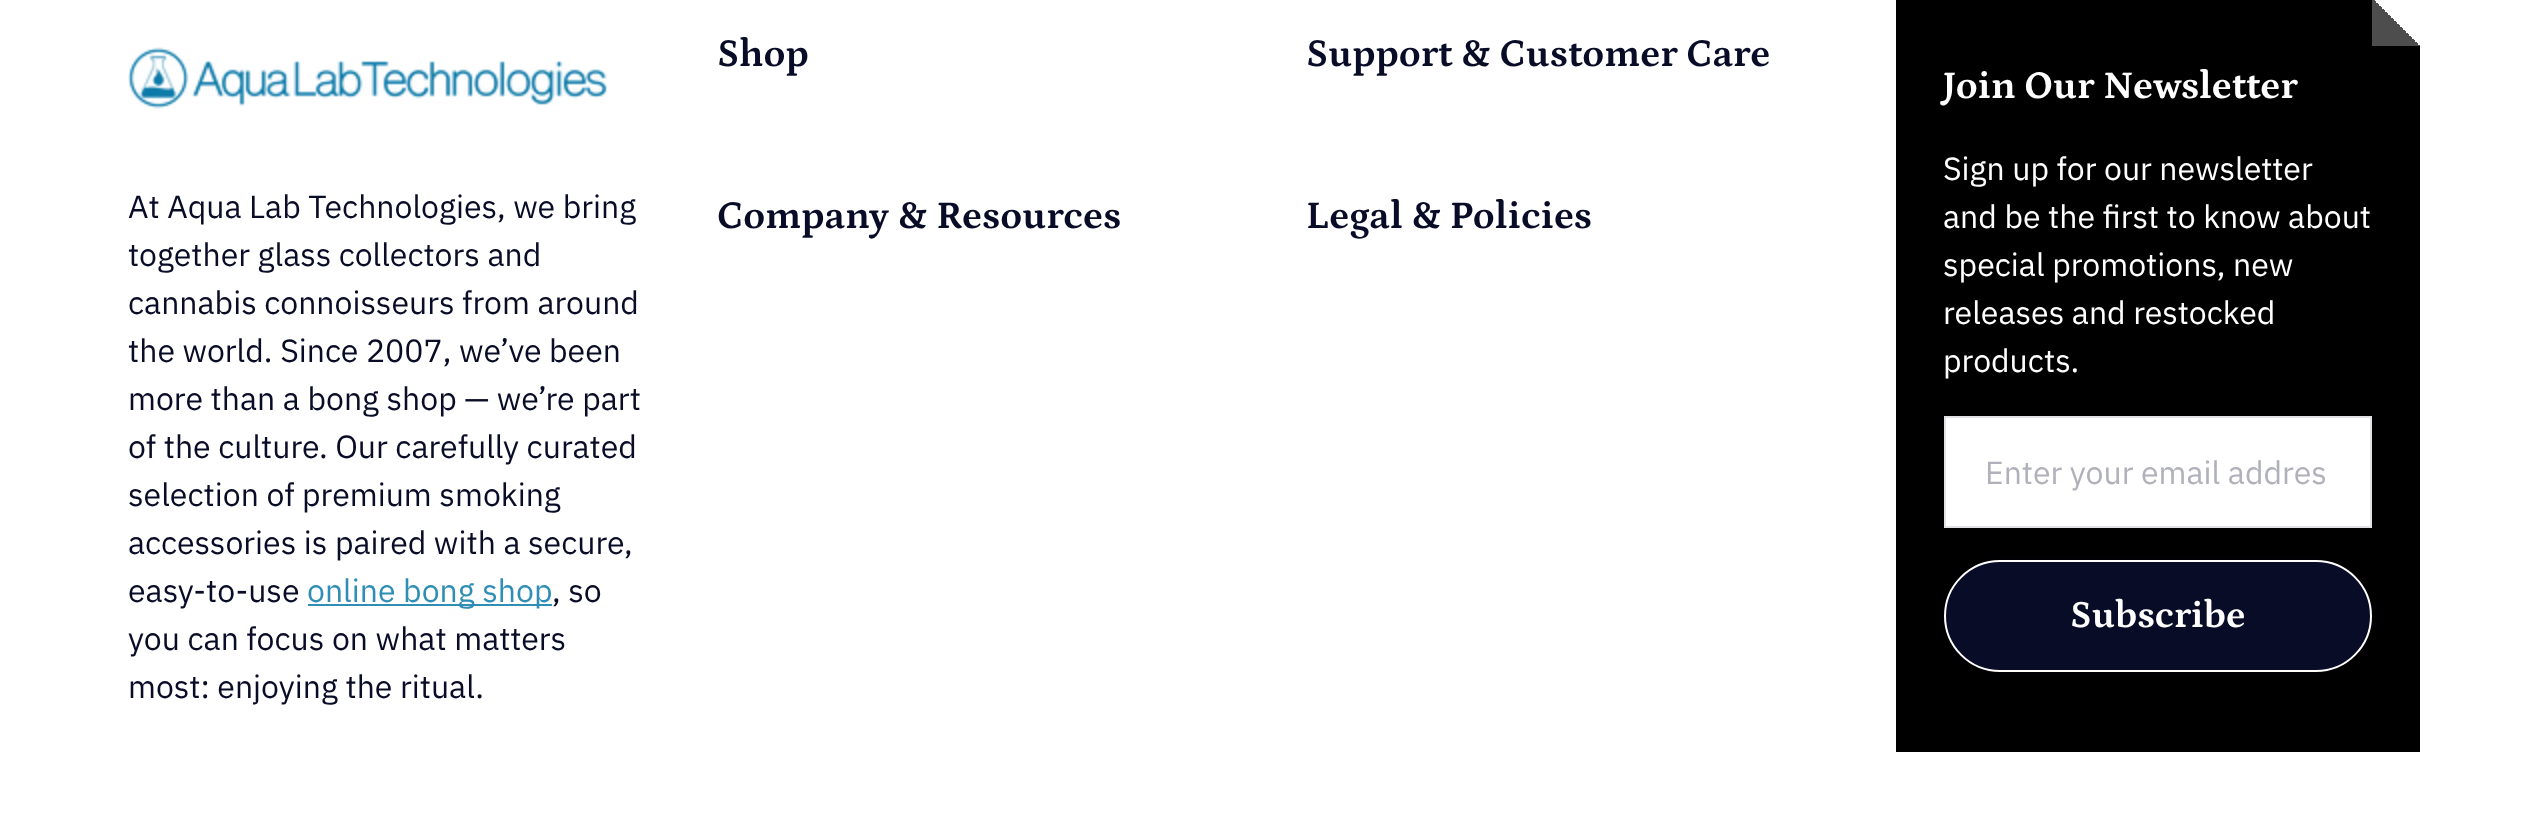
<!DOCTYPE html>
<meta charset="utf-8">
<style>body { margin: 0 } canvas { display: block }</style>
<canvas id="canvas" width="2548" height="815"></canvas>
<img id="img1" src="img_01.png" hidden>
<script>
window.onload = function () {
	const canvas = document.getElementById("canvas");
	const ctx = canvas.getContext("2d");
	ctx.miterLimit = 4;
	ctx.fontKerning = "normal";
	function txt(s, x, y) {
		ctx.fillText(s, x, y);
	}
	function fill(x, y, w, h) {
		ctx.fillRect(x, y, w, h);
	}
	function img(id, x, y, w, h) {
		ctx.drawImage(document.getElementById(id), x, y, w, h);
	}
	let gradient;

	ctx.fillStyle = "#FFFFFF";
	fill(0, 0, 2548, 815);
	img("img1", 128, 47, 479, 62);
	ctx.fillStyle = "#308EB5";
	fill(308, 604, 244, 2);
	ctx.fillStyle = "#000000";
	fill(1896, 0, 524, 752);
	gradient = ctx.createLinearGradient(2372, 46, 2420, -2);
	gradient.addColorStop(0.5, "#4D4D4D");
	gradient.addColorStop(0.5, "#FFFFFF");
	ctx.fillStyle = gradient;
	fill(2372, 0, 48, 46);
	ctx.fillStyle = "#FFFFFF";
	ctx.beginPath();
	ctx.rect(1945, 417, 426, 110);
	ctx.fill();
	ctx.strokeStyle = "#E1E2E5";
	ctx.lineWidth = 2;
	ctx.stroke();
	ctx.beginPath();
	ctx.roundRect(1943, 559, 430, 114, 57);
	ctx.strokeStyle = "#010105";
	ctx.stroke();
	ctx.fillStyle = "#090C26";
	ctx.beginPath();
	ctx.roundRect(1945, 561, 426, 110, 55);
	ctx.fill();
	ctx.strokeStyle = "#FFFFFF";
	ctx.stroke();
	ctx.font = "32px IBM Plex Sans";
	txt("At Aqua Lab Technologies, we bring", 128, 218);
	txt("together glass collectors and", 128, 266);
	txt("cannabis connoisseurs from around", 128, 314);
	txt("the world. Since 2007, we’ve been", 128, 362);
	txt("more than a bong shop — we’re part", 128, 410);
	txt("of the culture. Our carefully curated", 128, 458);
	txt("selection of premium smoking", 128, 506);
	txt("accessories is paired with a secure,", 128, 554);
	txt("easy-to-use", 128, 602);
	ctx.fillStyle = "#2F8EB5";
	txt("online bong shop", 307, 602);
	ctx.fillStyle = "#090C26";
	txt(", so", 552, 602);
	txt("you can focus on what matters", 128, 650);
	txt("most: enjoying the ritual.", 128, 698);
	ctx.font = "bold 39.6px Petrona";
	txt("Shop", 717, 66);
	txt("Support & Customer Care", 1306, 66);
	txt("Company & Resources", 717, 228);
	txt("Legal & Policies", 1306, 228);
	ctx.fillStyle = "#FFFFFF";
	txt("Join Our Newsletter", 1943, 98);
	ctx.font = "32px IBM Plex Sans";
	txt("Sign up for our newsletter", 1943, 180);
	txt("and be the first to know about", 1943, 228);
	txt("special promotions, new", 1943, 276);
	txt("releases and restocked", 1943, 324);
	txt("products.", 1943, 372);
	ctx.fillStyle = "#B0B1BA";
	txt("Enter your email addres", 1985, 484);
	ctx.font = "bold 38.5px Petrona";
	ctx.fillStyle = "#FFFFFF";
	txt("Subscribe", 2070, 627);
};
</script>
